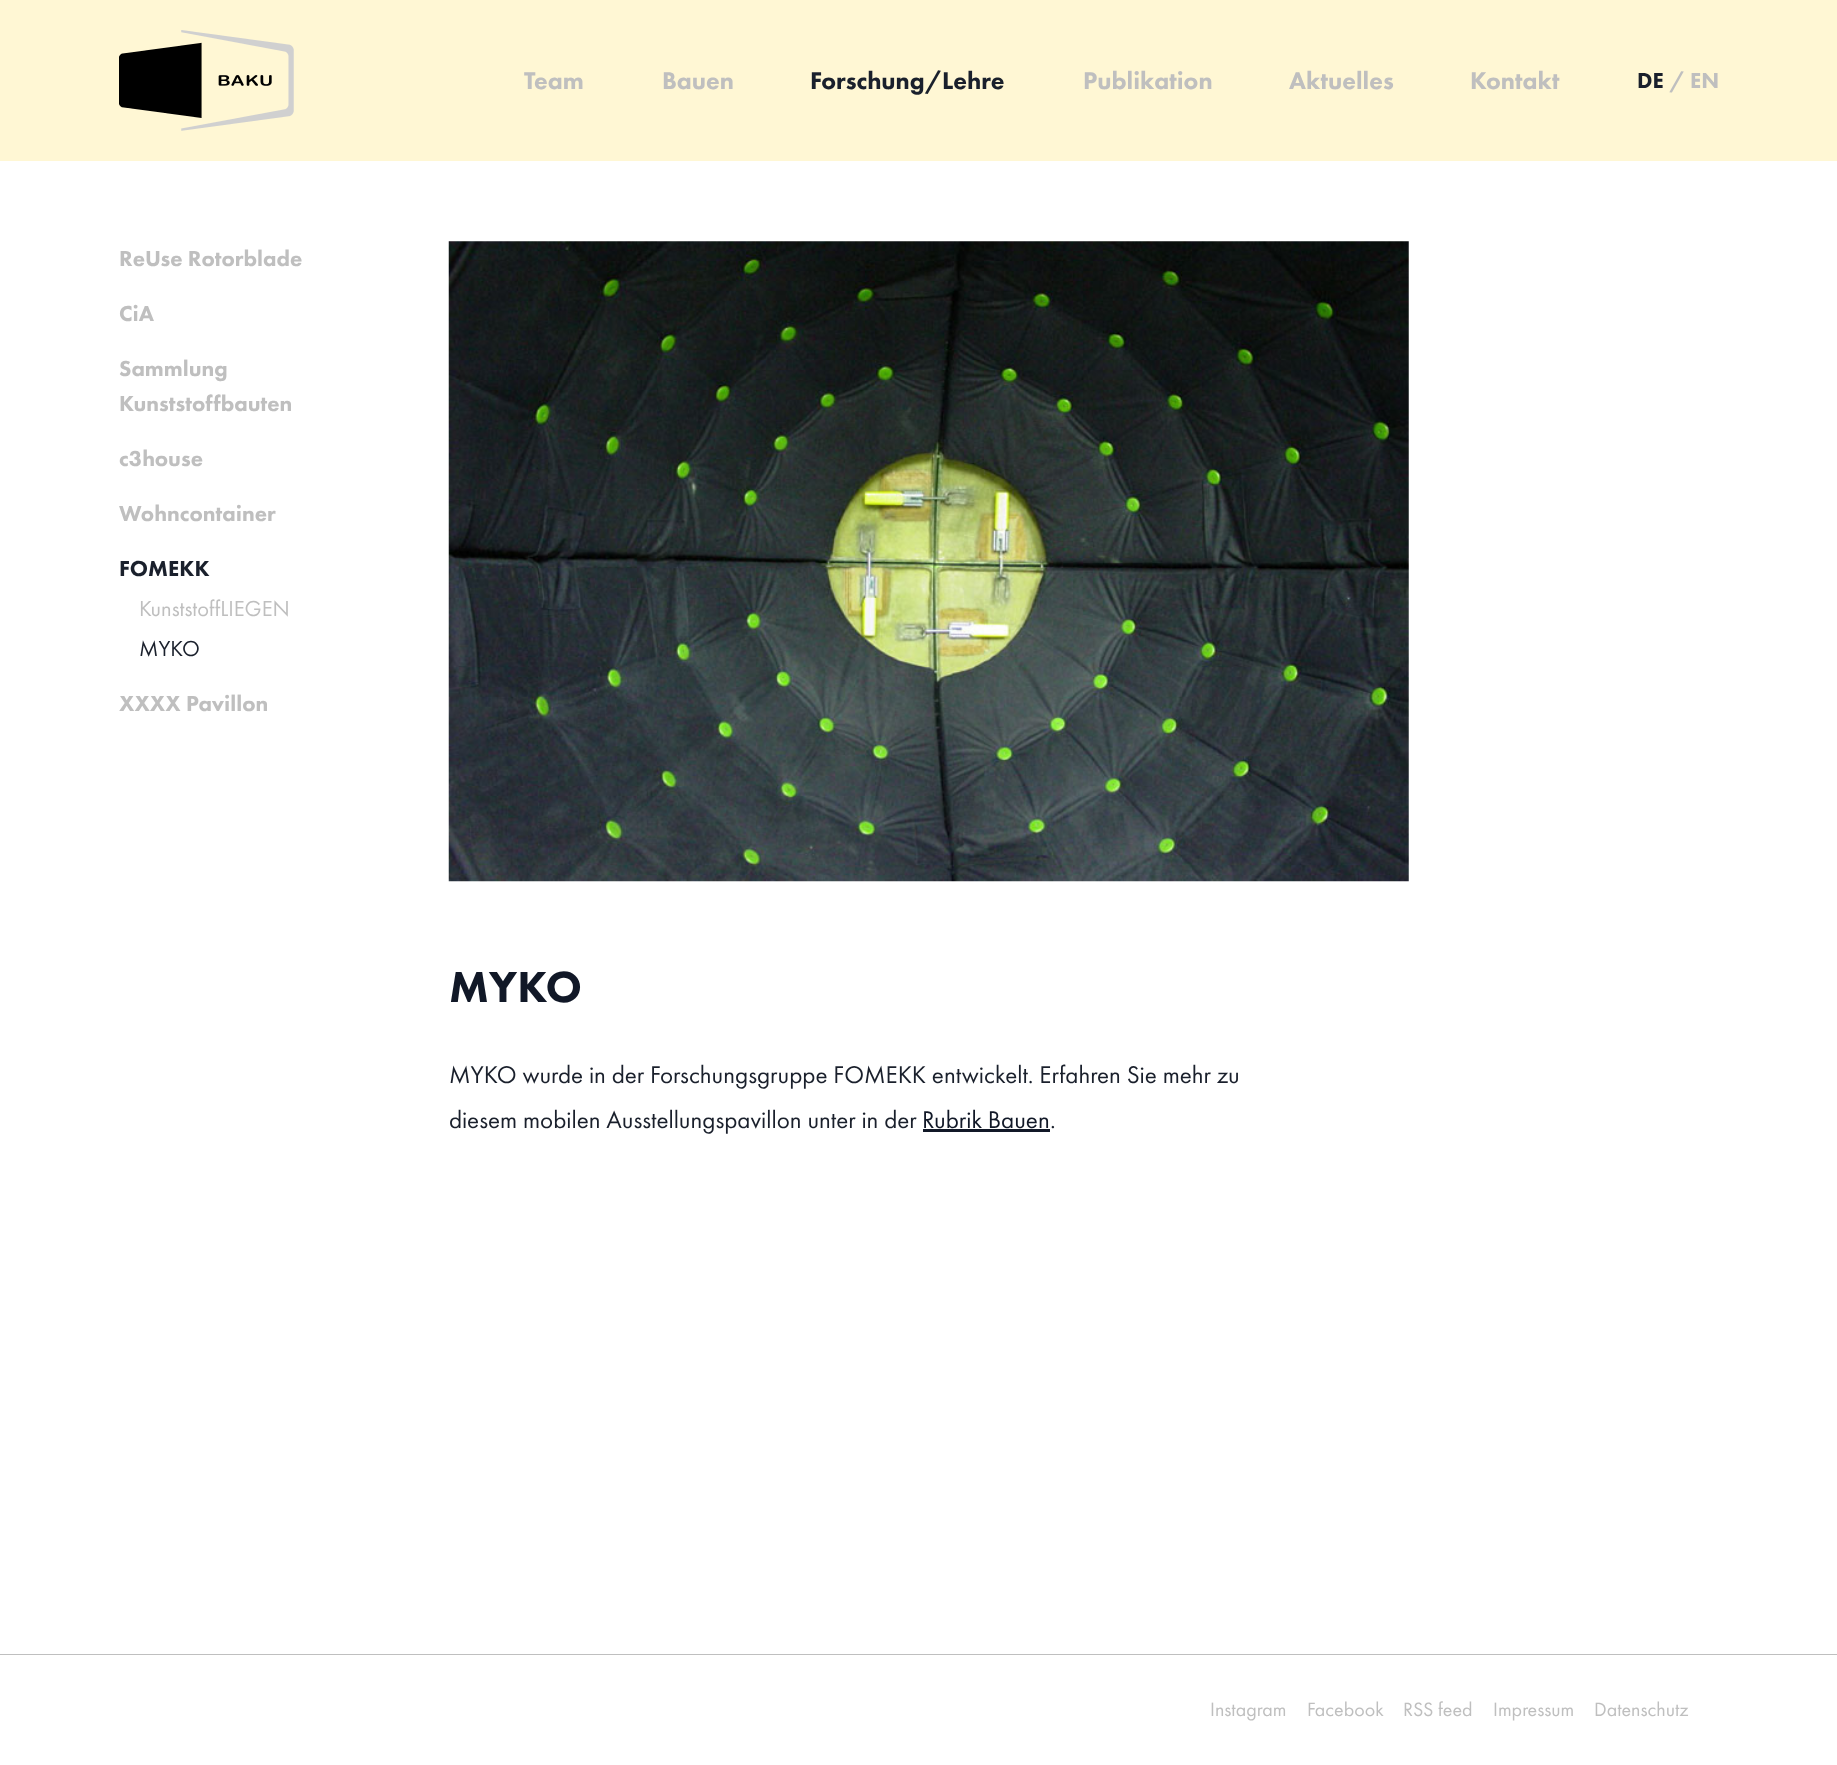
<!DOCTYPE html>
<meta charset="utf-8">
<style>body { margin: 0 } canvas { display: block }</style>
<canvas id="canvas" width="1837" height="1765"></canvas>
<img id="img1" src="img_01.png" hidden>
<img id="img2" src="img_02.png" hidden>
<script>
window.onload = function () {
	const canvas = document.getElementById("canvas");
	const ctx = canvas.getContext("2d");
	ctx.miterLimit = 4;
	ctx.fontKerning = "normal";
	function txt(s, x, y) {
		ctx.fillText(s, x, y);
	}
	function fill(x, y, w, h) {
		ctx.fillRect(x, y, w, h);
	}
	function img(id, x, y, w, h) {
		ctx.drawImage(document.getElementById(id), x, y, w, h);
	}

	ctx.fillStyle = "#FFFFFF";
	fill(0, 0, 1837, 1765);
	ctx.fillStyle = "#FFF7D4";
	fill(0, 0, 1837, 161);
	img("img1", 119, 30, 175, 101);
	img("img2", 448, 241, 961, 641);
	ctx.fillStyle = "#111827";
	fill(923, 1129, 127, 3);
	ctx.fillStyle = "#BFBFBF";
	fill(0, 1654, 1837, 1);
	ctx.font = "900 25px Futura PT";
	txt("Team", 524, 89);
	txt("Bauen", 662, 89);
	ctx.fillStyle = "#1A202C";
	txt("Forschung/Lehre", 810, 89);
	ctx.fillStyle = "#BFBFBF";
	txt("Publikation", 1083, 89);
	txt("Aktuelles", 1289, 89);
	txt("Kontakt", 1470, 89);
	ctx.font = "900 22.5px Futura PT";
	ctx.fillStyle = "#1A202C";
	txt("DE", 1637, 88);
	ctx.fillStyle = "#BFBFBF";
	txt("/ EN", 1669, 88);
	txt("ReUse Rotorblade", 119, 266);
	txt("CiA", 119, 321);
	txt("Sammlung", 119, 376);
	txt("Kunststoffbauten", 119, 411);
	txt("c3house", 119, 466);
	txt("Wohncontainer", 119, 521);
	ctx.fillStyle = "#1A202C";
	txt("FOMEKK", 119, 576);
	ctx.font = "22.5px Futura PT";
	ctx.fillStyle = "#BFBFBF";
	txt("KunststoffLIEGEN", 139, 616);
	ctx.fillStyle = "#1A202C";
	txt("MYKO", 139, 656);
	ctx.font = "900 22.5px Futura PT";
	ctx.fillStyle = "#BFBFBF";
	txt("XXXX Pavillon", 119, 711);
	ctx.font = "900 45px Futura PT";
	ctx.fillStyle = "#111827";
	txt("MYKO", 449, 1002);
	ctx.font = "25px Futura PT";
	ctx.fillStyle = "#1A202C";
	txt("MYKO wurde in der Forschungsgruppe FOMEKK entwickelt. Erfahren Sie mehr zu", 449, 1083);
	txt("diesem mobilen Ausstellungspavillon unter in der", 449, 1128);
	ctx.fillStyle = "#111827";
	txt("Rubrik Bauen", 922, 1128);
	ctx.fillStyle = "#1A202C";
	txt(".", 1050, 1128);
	ctx.font = "20px Futura PT";
	ctx.fillStyle = "#BFBFBF";
	txt("Instagram", 1210, 1716);
	txt("Facebook", 1307, 1716);
	txt("RSS feed", 1403, 1716);
	txt("Impressum", 1493, 1716);
	txt("Datenschutz", 1594, 1716);
};
</script>
